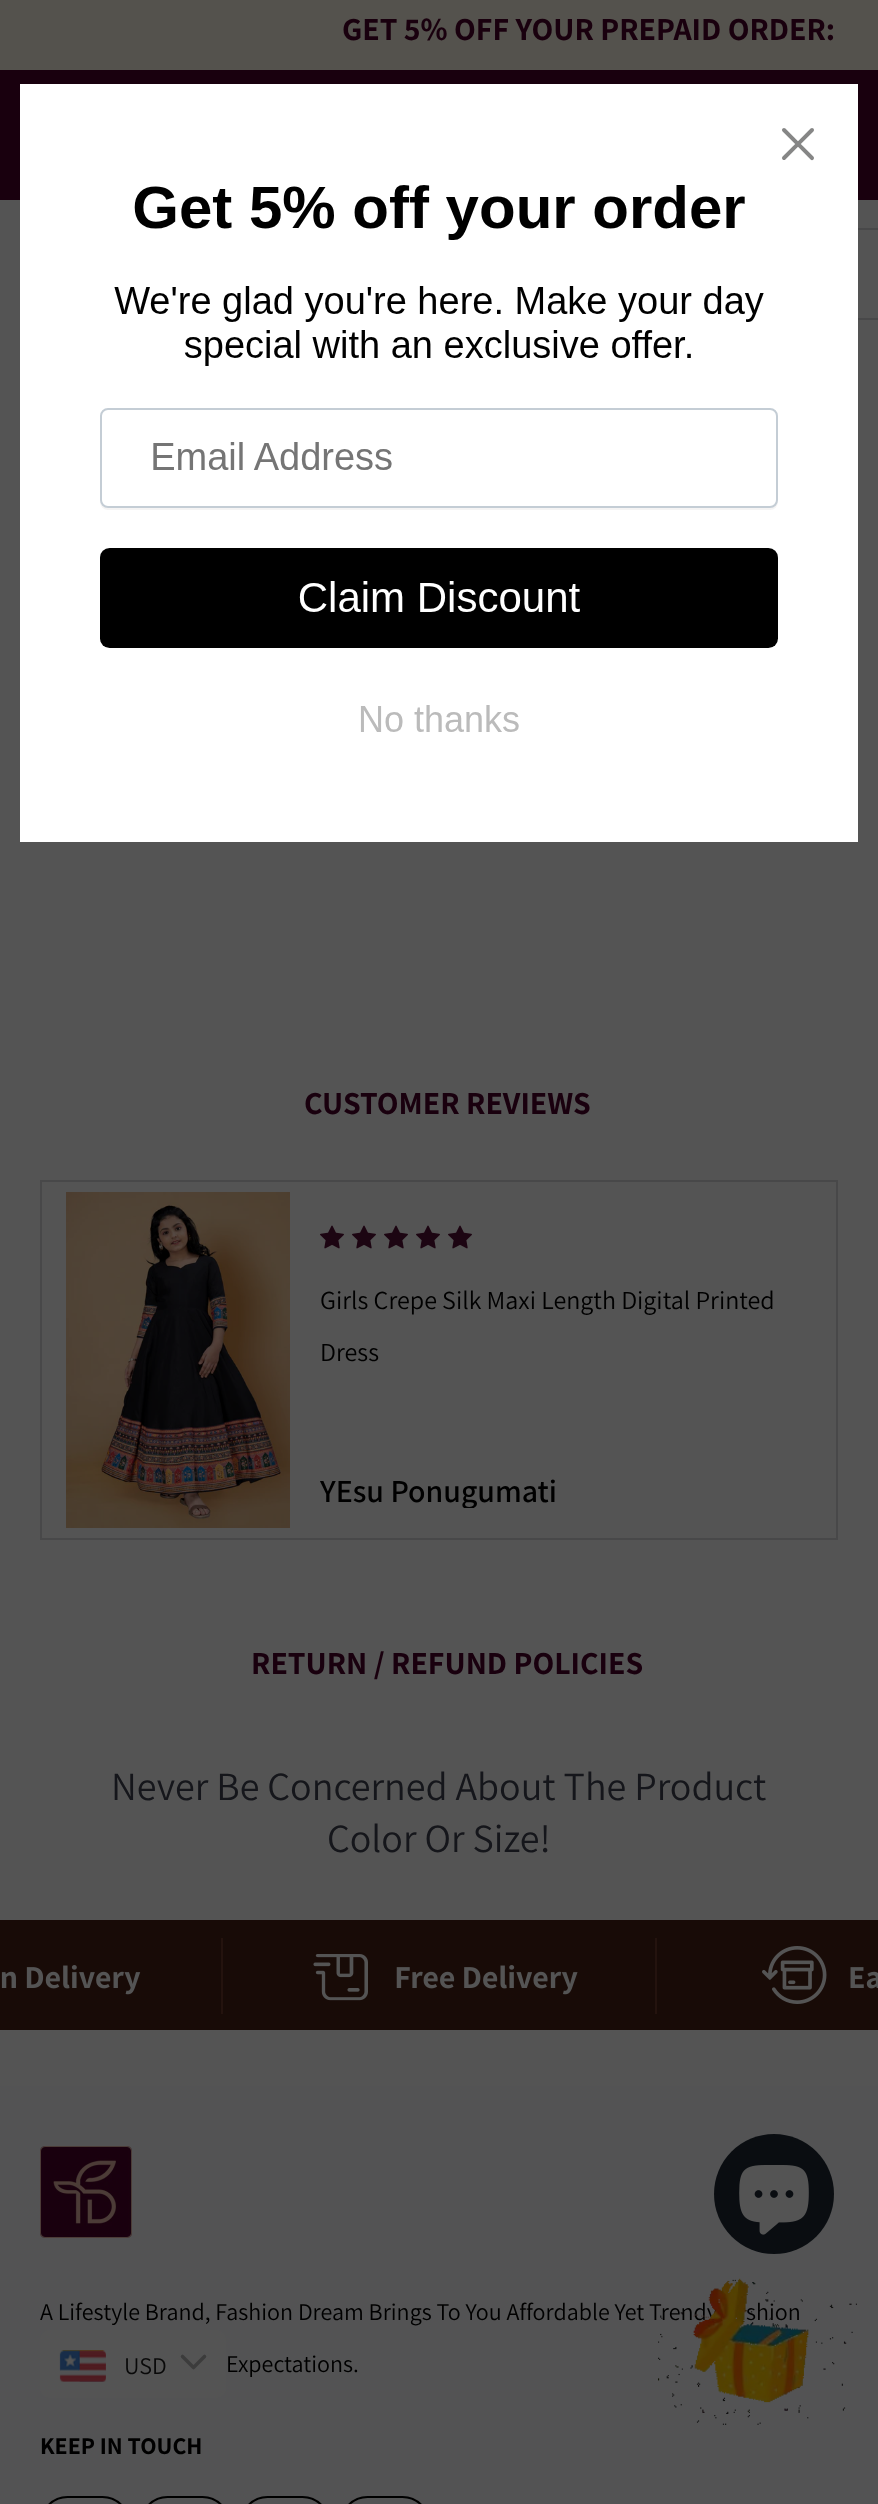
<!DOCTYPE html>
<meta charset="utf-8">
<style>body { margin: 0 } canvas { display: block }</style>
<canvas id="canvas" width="878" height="2504"></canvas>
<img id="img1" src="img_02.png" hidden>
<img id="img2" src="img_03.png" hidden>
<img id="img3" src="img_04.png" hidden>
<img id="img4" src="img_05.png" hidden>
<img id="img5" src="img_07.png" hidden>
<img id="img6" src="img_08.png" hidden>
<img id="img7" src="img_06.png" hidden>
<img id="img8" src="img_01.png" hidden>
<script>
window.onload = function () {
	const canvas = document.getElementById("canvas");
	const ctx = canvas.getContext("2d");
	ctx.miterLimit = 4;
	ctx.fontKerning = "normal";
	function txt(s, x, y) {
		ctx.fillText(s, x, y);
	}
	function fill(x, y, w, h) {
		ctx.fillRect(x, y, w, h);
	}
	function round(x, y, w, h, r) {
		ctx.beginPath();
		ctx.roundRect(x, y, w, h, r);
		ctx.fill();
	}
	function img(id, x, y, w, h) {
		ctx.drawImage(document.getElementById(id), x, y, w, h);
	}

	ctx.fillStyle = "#FFFFFF";
	fill(0, 0, 878, 2504);
	ctx.fillStyle = "#FEF8E8";
	fill(0, 0, 878, 70);
	ctx.fillStyle = "#4E032C";
	fill(0, 70, 878, 130);
	ctx.strokeStyle = "#D9DADD";
	ctx.lineWidth = 2;
	ctx.strokeRect(437, 229, 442, 90);
	ctx.strokeRect(41, 1181, 796, 358);
	img("img1", 66, 1192, 224, 336);
	img("img2", 320, 1225, 24, 24);
	img("img2", 352, 1225, 24, 24);
	img("img2", 384, 1225, 24, 24);
	img("img2", 416, 1225, 24, 24);
	img("img2", 448, 1225, 24, 24);
	img("img3", 0, 1920, 878, 110);
	ctx.fillStyle = "#FAFBFD";
	fill(0, 2086, 878, 418);
	ctx.fillStyle = "#202A36";
	ctx.beginPath();
	ctx.arc(774, 2194, 60, 0, Math.PI * 2);
	ctx.fill();
	img("img4", 739, 2165, 70, 70);
	img("img5", 40, 2146, 92, 92);
	ctx.beginPath();
	ctx.roundRect(41, 2497, 88, 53, 44);
	ctx.strokeStyle = "#000000";
	ctx.stroke();
	ctx.beginPath();
	ctx.roundRect(141, 2497, 88, 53, 44);
	ctx.stroke();
	ctx.beginPath();
	ctx.roundRect(241, 2497, 88, 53, 44);
	ctx.stroke();
	ctx.beginPath();
	ctx.roundRect(341, 2497, 88, 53, 44);
	ctx.stroke();
	ctx.fillStyle = "#FFFFFF";
	round(40, 2330, 186, 68, 10);
	img("img6", 59, 2350, 47, 32);
	ctx.beginPath();
	ctx.moveTo(182.5, 2356.5);
	ctx.lineTo(193.5, 2367.5);
	ctx.lineTo(204.5, 2356.5);
	ctx.strokeStyle = "#B7B7B7";
	ctx.lineWidth = 3.6;
	ctx.lineCap = "round";
	ctx.lineJoin = "round";
	ctx.stroke();
	ctx.font = "bold 32px Assistant";
	ctx.fillStyle = "#4E032C";
	txt("GET 5% OFF YOUR PREPAID ORDER:", 342, 40);
	txt("CUSTOMER REVIEWS", 304, 1114);
	ctx.font = "26px Assistant";
	ctx.fillStyle = "#000000";
	txt("Girls Crepe Silk Maxi Length Digital Printed", 320, 1309);
	txt("Dress", 320, 1361);
	ctx.save();
	ctx.beginPath();
	ctx.rect(320, 1476, 474, 32);
	ctx.clip();
	ctx.font = "600 32px Assistant";
	txt("YEsu Ponugumati", 320, 1502);
	ctx.restore();
	ctx.font = "bold 32px Assistant";
	ctx.fillStyle = "#4E032C";
	txt("RETURN / REFUND POLICIES", 251, 1674);
	ctx.font = "40px Assistant";
	ctx.fillStyle = "#424553";
	txt("Never Be Concerned About The Product", 111, 1800);
	txt("Color Or Size!", 327, 1852);
	ctx.font = "24px Assistant";
	ctx.fillStyle = "#000000";
	txt("A Lifestyle Brand, Fashion Dream Brings To You Affordable Yet Trendy", 40, 2320);
	txt("shion", 746, 2320);
	img("img7", 658, 2278, 199, 147);
	txt("Expectations.", 226, 2372);
	ctx.font = "bold 24px Assistant";
	txt("KEEP IN TOUCH", 40, 2454);
	ctx.font = "24px Assistant";
	ctx.fillStyle = "#1E1E1E";
	txt("USD", 124, 2374);
	img("img8", 0, 0, 878, 2504);
};
</script>
